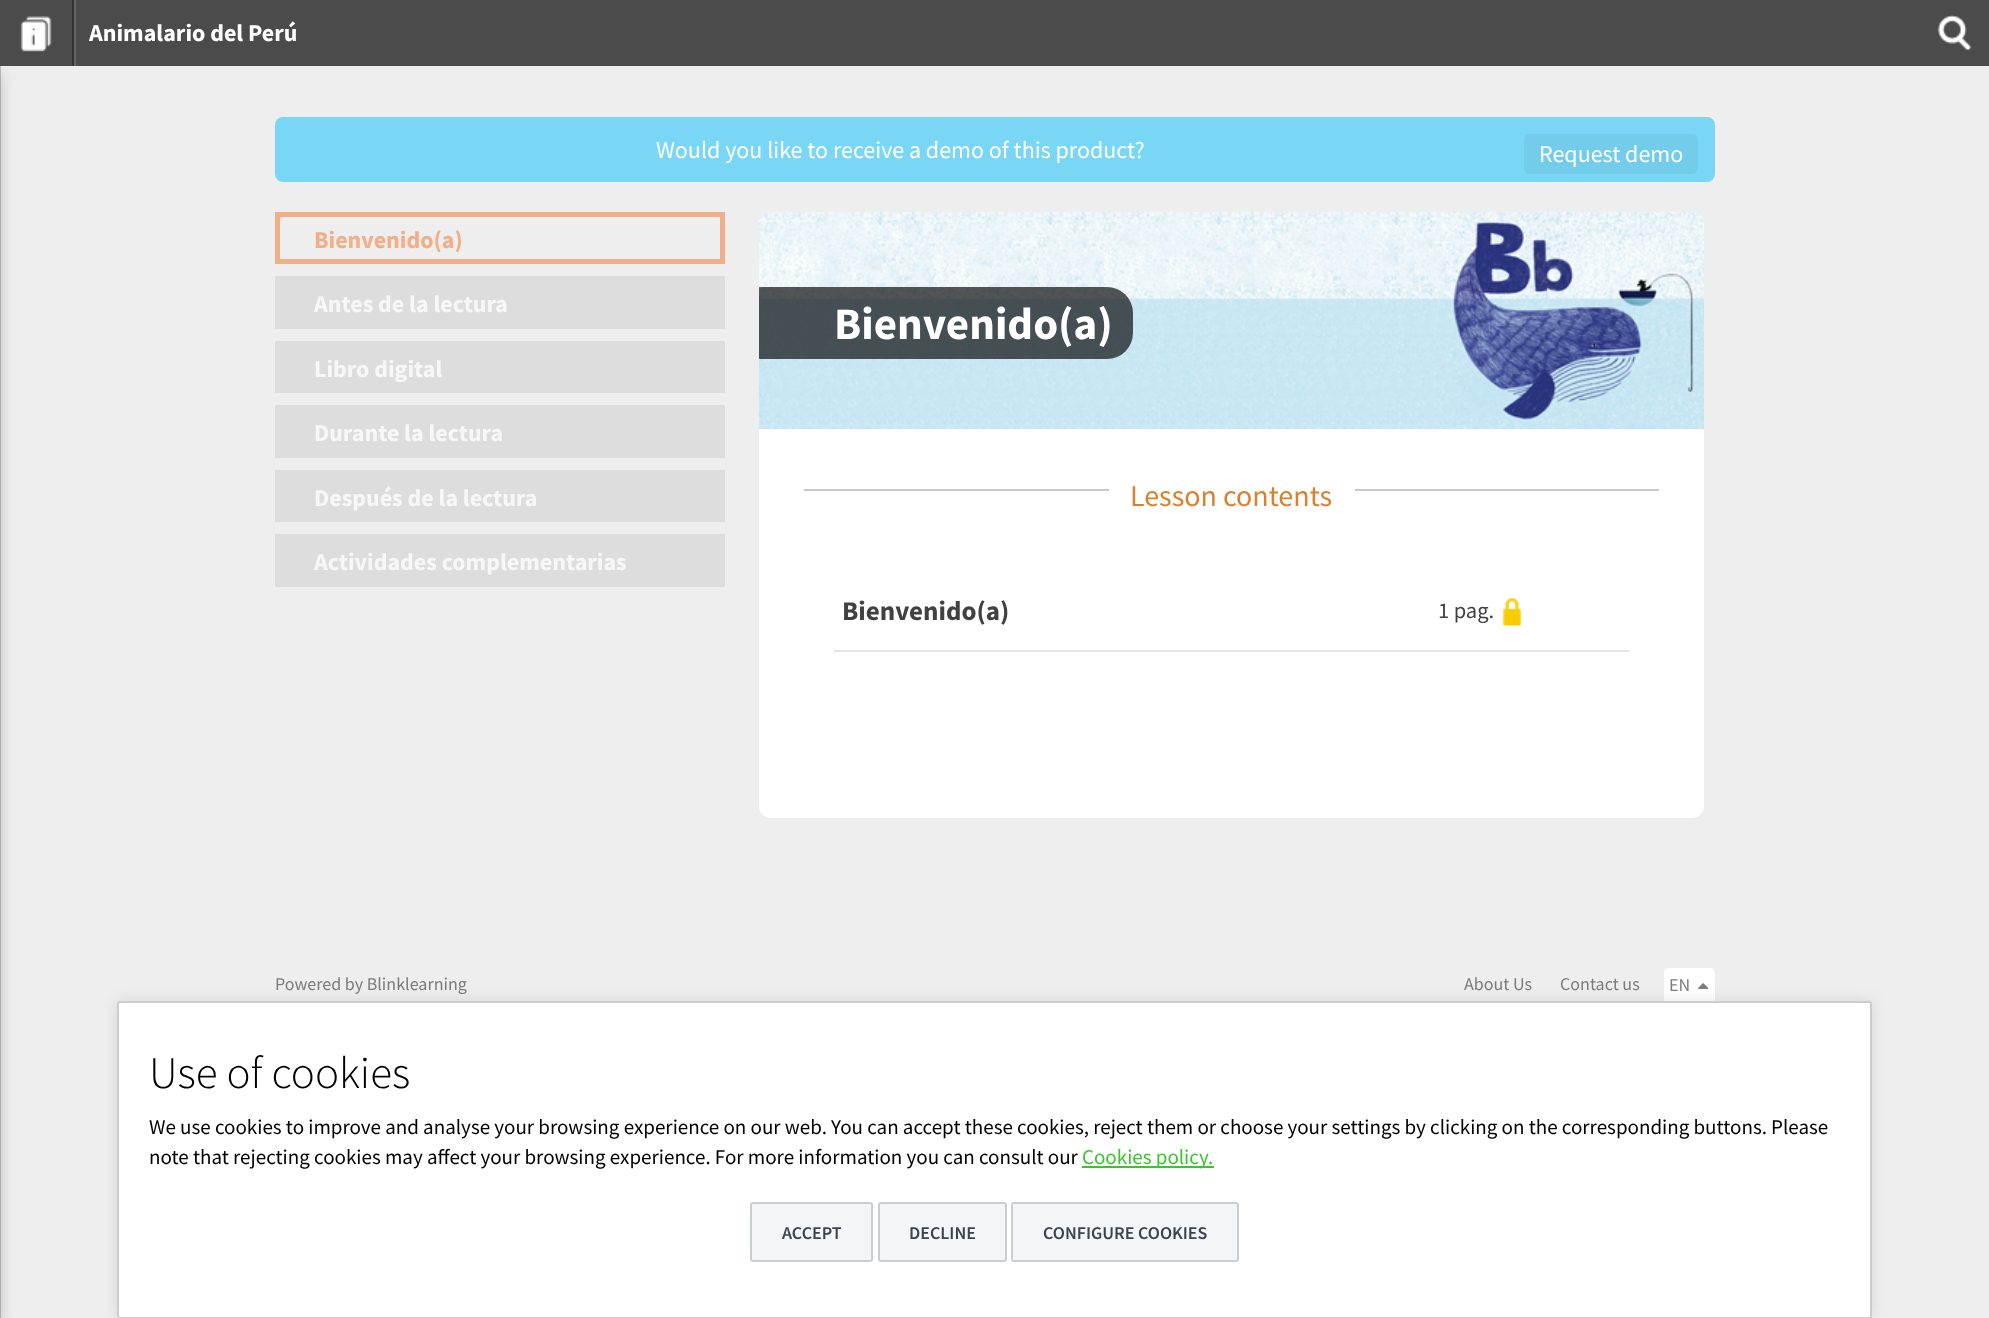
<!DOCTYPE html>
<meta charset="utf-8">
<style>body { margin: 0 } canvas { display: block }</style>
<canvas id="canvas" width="1989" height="1318"></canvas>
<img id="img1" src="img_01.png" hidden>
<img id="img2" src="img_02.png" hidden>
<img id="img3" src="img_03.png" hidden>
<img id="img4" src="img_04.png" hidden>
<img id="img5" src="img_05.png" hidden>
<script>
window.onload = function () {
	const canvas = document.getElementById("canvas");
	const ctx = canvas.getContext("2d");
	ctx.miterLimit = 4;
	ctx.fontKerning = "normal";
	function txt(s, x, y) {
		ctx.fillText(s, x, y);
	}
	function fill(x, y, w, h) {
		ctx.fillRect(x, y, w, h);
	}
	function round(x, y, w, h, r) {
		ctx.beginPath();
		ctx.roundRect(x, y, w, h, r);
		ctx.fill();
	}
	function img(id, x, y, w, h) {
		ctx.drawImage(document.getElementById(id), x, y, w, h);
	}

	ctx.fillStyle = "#EEEEEE";
	fill(0, 0, 1989, 1318);
	ctx.fillStyle = "rgba(0, 0, 0, 0.2)";
	ctx.filter = "blur(7.5px)";
	ctx.beginPath();
	ctx.rect(-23, 74, 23, 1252);
	ctx.fill();
	ctx.filter = "none";
	ctx.fillStyle = "#4B4B4B";
	fill(0, 0, 1989, 66);
	img("img1", 20, 16, 32, 36);
	ctx.fillStyle = "#333333";
	fill(72, 0, 2, 66);
	ctx.fillStyle = "#666666";
	fill(74, 0, 2, 66);
	img("img2", 1937, 14, 35, 36);
	ctx.fillStyle = "rgba(0, 0, 0, 0.2)";
	fill(0, 66, 1, 1252);
	ctx.fillStyle = "#79D7F5";
	round(275, 117, 1440, 65, 8);
	ctx.fillStyle = "#73CCE9";
	round(1524, 134, 174, 40, 6);
	ctx.strokeStyle = "#F1AF89";
	ctx.lineWidth = 5;
	ctx.strokeRect(277.5, 214.5, 445, 47);
	ctx.fillStyle = "#DDDDDD";
	fill(275, 276, 450, 53);
	fill(275, 341, 450, 52);
	fill(275, 405, 450, 53);
	fill(275, 470, 450, 52);
	fill(275, 534, 450, 53);
	ctx.fillStyle = "#FFFFFF";
	round(759, 212, 945, 606, 12);
	img("img3", 759, 211, 945, 218);
	ctx.save();
	ctx.beginPath();
	ctx.rect(759, 212, 945, 217);
	ctx.clip();
	ctx.fillStyle = "rgba(0, 0, 0, 0.66)";
	round(737, 287, 396, 72, 26);
	ctx.restore();
	ctx.fillStyle = "#C8C8C8";
	fill(804, 489, 855, 2);
	ctx.fillStyle = "#FFFFFF";
	fill(1109, 489, 246, 2);
	ctx.fillStyle = "#E5E5E5";
	fill(834, 650, 795, 2);
	img("img4", 1502, 598, 20, 28);
	ctx.fillStyle = "#FFFFFF";
	round(1664, 968, 51, 36, 5);
	img("img5", 1698, 983, 11, 6);
	ctx.fillStyle = "rgba(0, 0, 0, 0.1)";
	ctx.filter = "blur(7.5px)";
	ctx.beginPath();
	ctx.roundRect(117, 1001, 1755, 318, 3);
	ctx.fill();
	ctx.filter = "none";
	ctx.fillStyle = "#FFFFFF";
	round(117, 1001, 1755, 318, 3);
	ctx.beginPath();
	ctx.roundRect(118, 1002, 1753, 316, 2);
	ctx.strokeStyle = "rgba(0, 0, 0, 0.2)";
	ctx.lineWidth = 2;
	ctx.stroke();
	ctx.fillStyle = "#3AC62A";
	fill(1082, 1166, 132, 2);
	ctx.fillStyle = "#F4F5F7";
	ctx.beginPath();
	ctx.roundRect(751, 1203, 121, 58, 2);
	ctx.fill();
	ctx.strokeStyle = "#C8CDD7";
	ctx.stroke();
	ctx.beginPath();
	ctx.roundRect(879, 1203, 127, 58, 2);
	ctx.fill();
	ctx.stroke();
	ctx.beginPath();
	ctx.roundRect(1012, 1203, 226, 58, 2);
	ctx.fill();
	ctx.stroke();
	ctx.font = "bold 24px Source Sans Pro";
	ctx.fillStyle = "#FFFFFF";
	txt("Animalario del Perú", 89, 41);
	ctx.font = "24px Source Sans Pro";
	txt("Would you like to receive a demo of this product?", 656, 158);
	txt("Request demo", 1539, 162);
	ctx.font = "bold 24px Source Sans Pro";
	ctx.fillStyle = "#F1AF89";
	txt("Bienvenido(a)", 314, 248);
	ctx.fillStyle = "#F7F7F7";
	txt("Antes de la lectura", 314, 312);
	txt("Libro digital", 314, 377);
	txt("Durante la lectura", 314, 441);
	txt("Después de la lectura", 314, 506);
	txt("Actividades complementarias", 314, 570);
	ctx.font = "bold 45px Source Sans Pro";
	ctx.fillStyle = "#FFFFFF";
	txt("Bienvenido(a)", 834, 339);
	ctx.font = "30px Source Sans Pro";
	ctx.fillStyle = "#DA812D";
	txt("Lesson contents", 1130, 506);
	ctx.font = "bold 27px Source Sans Pro";
	ctx.fillStyle = "#414141";
	txt("Bienvenido(a)", 842, 620);
	ctx.font = "22.5px Source Sans Pro";
	txt("1 pag.", 1438, 618);
	ctx.font = "18px Source Sans Pro";
	ctx.fillStyle = "#7B7B7B";
	txt("Powered by Blinklearning", 275, 990);
	txt("About Us", 1464, 990);
	txt("Contact us", 1560, 990);
	txt("EN", 1669, 991);
	ctx.font = "300 45px Source Sans Pro";
	ctx.fillStyle = "#000000";
	txt("Use of cookies", 149, 1088);
	ctx.font = "21px Source Sans Pro";
	txt("We use cookies to improve and analyse your browsing experience on our web. You can accept these cookies, reject them or choose your settings by clicking on the corresponding buttons. Please", 149, 1134);
	txt("note that rejecting cookies may affect your browsing experience. For more information you can consult our", 149, 1164);
	ctx.fillStyle = "#3AC62A";
	txt("Cookies policy.", 1082, 1164);
	ctx.font = "600 18px Source Sans Pro";
	ctx.fillStyle = "#3E444D";
	txt("ACCEPT", 782, 1239);
	txt("DECLINE", 909, 1239);
	txt("CONFIGURE COOKIES", 1043, 1239);
};
</script>
